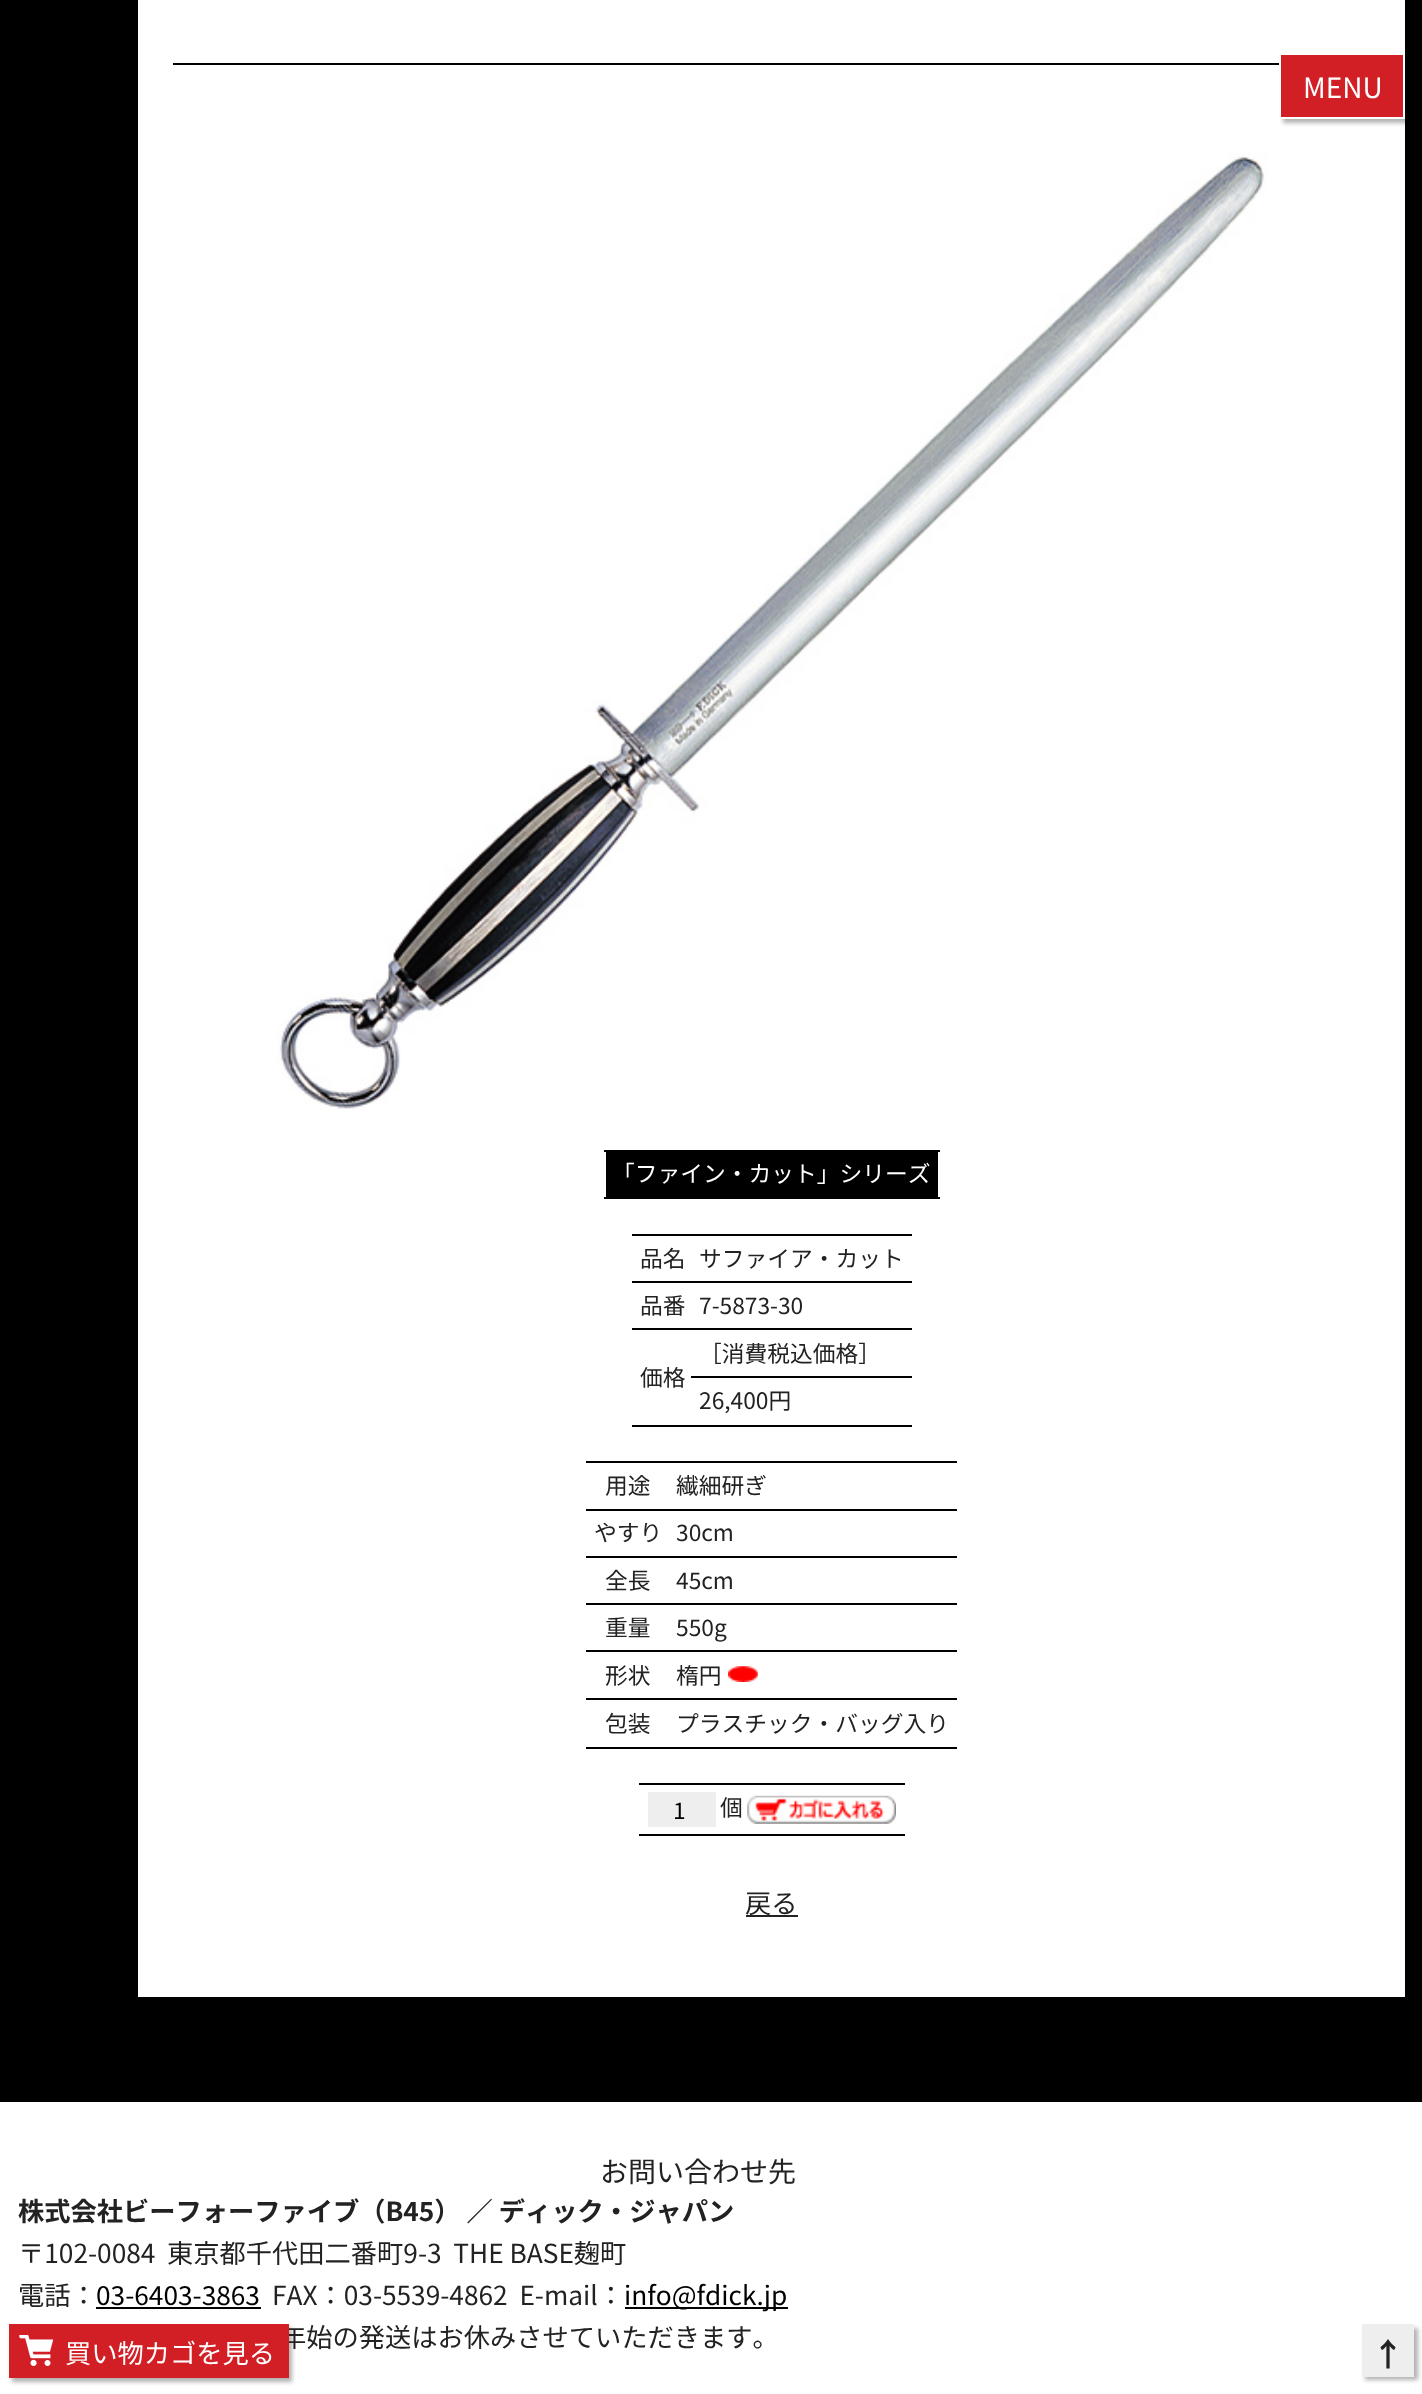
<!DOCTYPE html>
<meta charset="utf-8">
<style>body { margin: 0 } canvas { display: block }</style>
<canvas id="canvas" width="1422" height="2394"></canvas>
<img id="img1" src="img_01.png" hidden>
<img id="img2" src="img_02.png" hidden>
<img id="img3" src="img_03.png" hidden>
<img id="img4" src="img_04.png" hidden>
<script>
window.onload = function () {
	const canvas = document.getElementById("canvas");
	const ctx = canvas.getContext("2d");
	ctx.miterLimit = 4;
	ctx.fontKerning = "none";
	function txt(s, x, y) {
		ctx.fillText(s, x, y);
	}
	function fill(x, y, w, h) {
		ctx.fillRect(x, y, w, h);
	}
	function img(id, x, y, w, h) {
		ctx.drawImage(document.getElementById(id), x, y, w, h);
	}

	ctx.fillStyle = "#000000";
	fill(0, 0, 1422, 2394);
	ctx.fillStyle = "#FFFFFF";
	fill(138, 0, 1267, 1997);
	ctx.fillStyle = "#000000";
	fill(173, 63, 1106, 2);
	ctx.fillStyle = "rgba(0, 0, 0, 0.3)";
	ctx.filter = "blur(2px)";
	ctx.beginPath();
	ctx.rect(1283, 56, 126, 67);
	ctx.fill();
	ctx.filter = "none";
	ctx.fillStyle = "#D11F25";
	ctx.beginPath();
	ctx.rect(1280, 54, 124, 64);
	ctx.fill();
	ctx.strokeStyle = "#FFFFFF";
	ctx.lineWidth = 2;
	ctx.stroke();
	img("img1", 277, 152, 990, 957);
	ctx.fillStyle = "#000000";
	fill(606, 1152, 332, 45);
	fill(604, 1150, 336, 2);
	fill(604, 1197, 336, 2);
	fill(632, 1234, 280, 2);
	fill(632, 1281, 280, 2);
	fill(632, 1328, 280, 2);
	fill(691, 1376, 221, 2);
	fill(632, 1425, 280, 2);
	fill(586, 1461, 371, 2);
	fill(586, 1509, 371, 2);
	fill(586, 1556, 371, 2);
	fill(586, 1603, 371, 2);
	fill(586, 1650, 371, 2);
	img("img2", 728, 1666, 30, 16);
	fill(586, 1698, 371, 2);
	fill(586, 1747, 371, 2);
	fill(639, 1783, 266, 2);
	fill(639, 1834, 266, 2);
	ctx.fillStyle = "#EEEEEE";
	fill(648, 1792, 68, 35);
	img("img3", 747, 1795, 149, 29);
	ctx.fillStyle = "#222222";
	fill(746, 1915, 52, 2);
	ctx.fillStyle = "#FFFFFF";
	fill(0, 2102, 1422, 292);
	ctx.fillStyle = "#000000";
	fill(96, 2307, 165, 2);
	fill(625, 2307, 163, 2);
	ctx.fillStyle = "rgba(0, 0, 0, 0.3)";
	ctx.filter = "blur(2px)";
	ctx.beginPath();
	ctx.rect(12, 2328, 280, 54);
	ctx.fill();
	ctx.filter = "none";
	ctx.filter = "blur(2px)";
	ctx.beginPath();
	ctx.rect(1365, 2328, 53, 52);
	ctx.fill();
	ctx.filter = "none";
	ctx.fillStyle = "#EEEEEE";
	fill(1362, 2324, 52, 53);
	ctx.font = "28px Noto Sans JP";
	ctx.fillStyle = "#FFFFFF";
	txt("MENU", 1303, 98);
	ctx.font = "22.75px Noto Sans JP";
	txt("「ファイン・カット」シリーズ", 612, 1182);
	ctx.fillStyle = "#222222";
	txt("品名", 640, 1267);
	txt("サファイア・カット", 699, 1267);
	txt("品番", 640, 1314);
	txt("7-5873-30", 699, 1314);
	txt("［消費税込価格］", 699, 1362);
	txt("価格", 640, 1386);
	txt("26,400円", 699, 1409);
	txt("用途", 605, 1494);
	txt("繊細研ぎ", 676, 1494);
	txt("やすり", 594, 1541);
	txt("30cm", 676, 1541);
	txt("全長", 605, 1589);
	txt("45cm", 676, 1589);
	txt("重量", 605, 1636);
	txt("550g", 676, 1636);
	txt("形状", 605, 1684);
	txt("楕円", 676, 1684);
	txt("包装", 605, 1732);
	txt("プラスチック・バッグ入り", 676, 1732);
	ctx.fillStyle = "#000000";
	txt("1", 673, 1819);
	ctx.fillStyle = "#222222";
	txt("個", 720, 1816);
	ctx.font = "26.25px Noto Sans JP";
	txt("戻る", 745, 1913);
	ctx.font = "28px Noto Sans JP";
	txt("お問い合わせ先", 600, 2182);
	ctx.font = "bold 26.25px Noto Sans JP";
	txt("株式会社ビーフォーファイブ（B45） ／ ディック", 18, 2221);
	txt("・ジャパン", 603, 2221);
	ctx.font = "26.25px Noto Sans JP";
	txt("〒102-0084  東京都千代田二番町9-3  THE BASE麹町", 18, 2263);
	txt("電話：", 18, 2305);
	ctx.fillStyle = "#000000";
	txt("03-6403-3863", 96, 2305);
	ctx.fillStyle = "#222222";
	txt("FAX：03-5539-4862  E-mail：", 272, 2305);
	ctx.fillStyle = "#000000";
	txt("info@fdick.jp", 624, 2305);
	ctx.fillStyle = "#222222";
	txt("年始の発送はお休みさせていただきます。", 280, 2347);
	ctx.fillStyle = "#D11F25";
	fill(9, 2324, 280, 54);
	img("img4", 19, 2335, 34, 31);
	ctx.fillStyle = "#FFFFFF";
	txt("買い物カゴを見る", 65, 2363);
	ctx.font = "bold 32px Noto Sans JP";
	ctx.fillStyle = "#222222";
	txt("↑", 1372, 2366);
};
</script>
